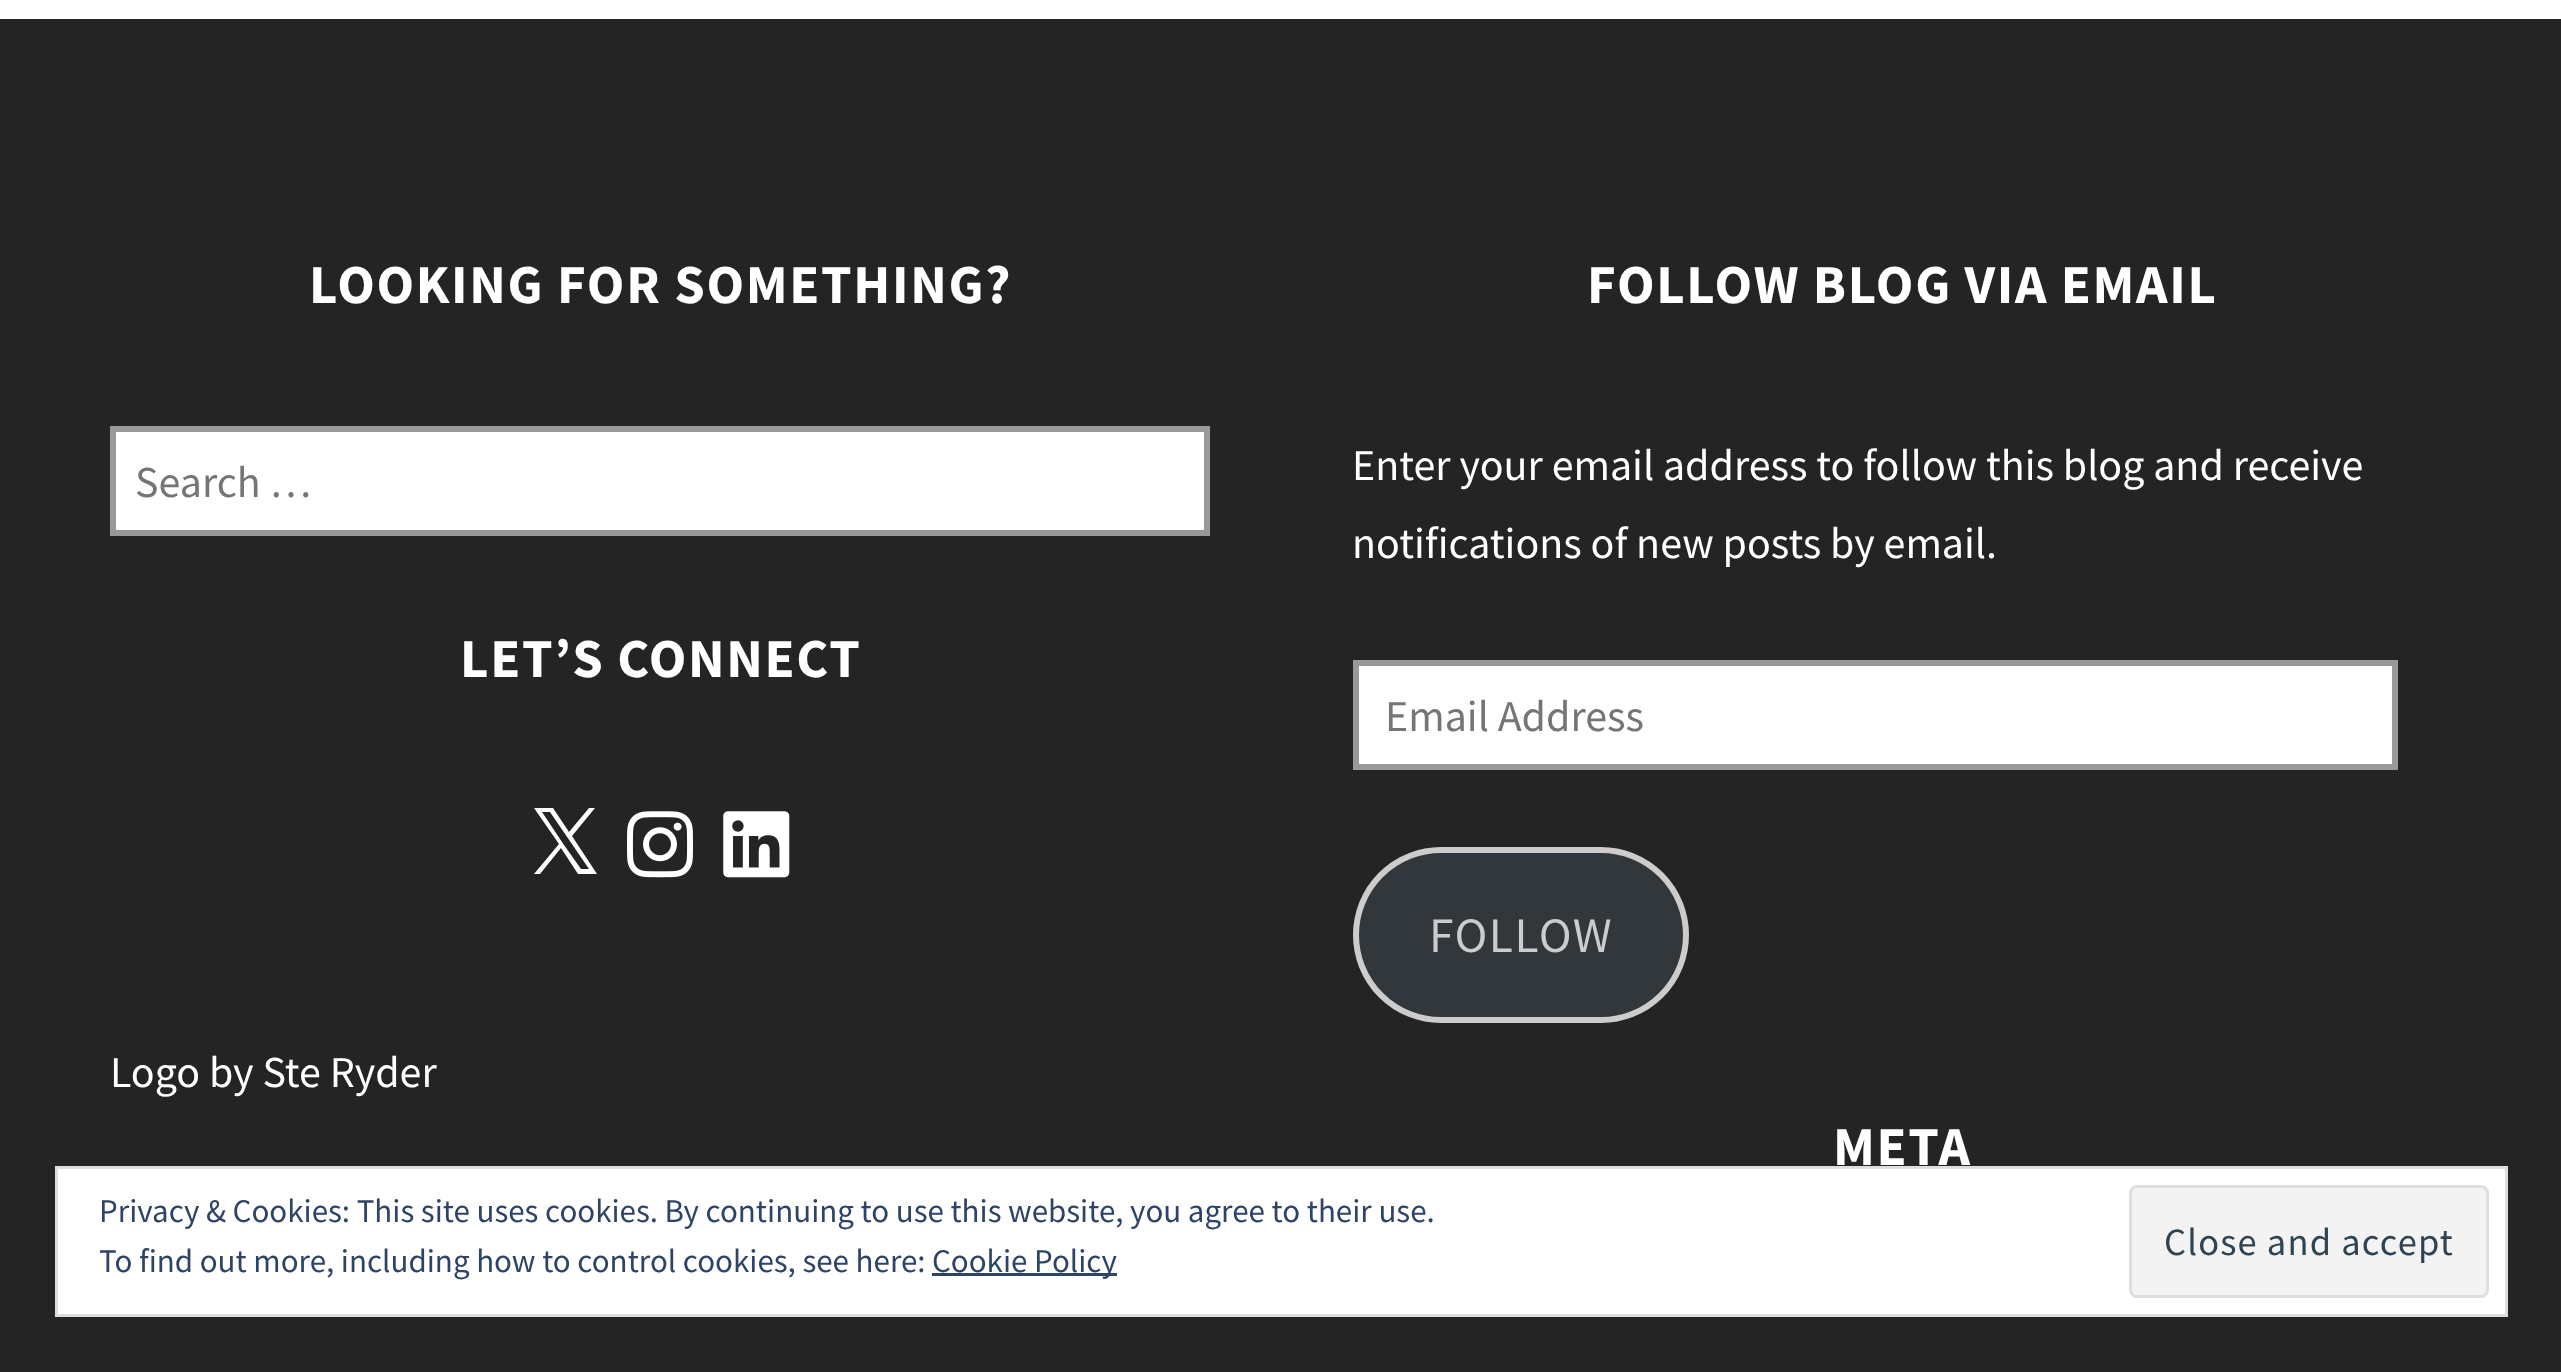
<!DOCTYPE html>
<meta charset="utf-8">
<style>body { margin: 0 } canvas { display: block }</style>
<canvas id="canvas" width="2561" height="1372"></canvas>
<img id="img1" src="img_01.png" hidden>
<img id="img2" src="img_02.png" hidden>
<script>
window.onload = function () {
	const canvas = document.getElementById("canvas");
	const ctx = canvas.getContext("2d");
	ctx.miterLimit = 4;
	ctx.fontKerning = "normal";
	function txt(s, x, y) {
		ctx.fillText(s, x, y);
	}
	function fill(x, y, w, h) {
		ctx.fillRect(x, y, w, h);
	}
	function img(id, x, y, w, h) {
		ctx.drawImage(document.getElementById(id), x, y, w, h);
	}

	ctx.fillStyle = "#FFFFFF";
	fill(0, 0, 2561, 1372);
	ctx.fillStyle = "#242424";
	fill(0, 19, 2561, 1353);
	ctx.fillStyle = "#FFFFFF";
	ctx.beginPath();
	ctx.rect(113, 429, 1094, 104);
	ctx.fill();
	ctx.strokeStyle = "#999999";
	ctx.lineWidth = 6;
	ctx.stroke();
	ctx.beginPath();
	ctx.moveTo(572, 836);
	ctx.lineTo(595, 808);
	ctx.lineTo(589, 808);
	ctx.lineTo(569, 832);
	ctx.lineTo(553, 808);
	ctx.lineTo(534, 808);
	ctx.lineTo(559, 844);
	ctx.lineTo(534, 874);
	ctx.lineTo(540, 874);
	ctx.lineTo(561, 848);
	ctx.lineTo(578, 874);
	ctx.lineTo(597, 874);
	ctx.closePath();
	ctx.moveTo(564, 845);
	ctx.lineTo(542, 812);
	ctx.lineTo(550, 812);
	ctx.lineTo(589, 869);
	ctx.lineTo(581, 869);
	ctx.closePath();
	ctx.fill();
	img("img1", 627, 811, 66, 67);
	img("img2", 723, 811, 67, 67);
	ctx.beginPath();
	ctx.rect(1356, 663, 1039, 104);
	ctx.fill();
	ctx.stroke();
	ctx.fillStyle = "#32373C";
	ctx.beginPath();
	ctx.roundRect(1356, 850, 330, 170, 85);
	ctx.fill();
	ctx.strokeStyle = "#CCCCCC";
	ctx.stroke();
	ctx.fillStyle = "#FFFFFF";
	ctx.beginPath();
	ctx.rect(56.5, 1167.5, 2450, 148);
	ctx.fill();
	ctx.strokeStyle = "#DEDEDE";
	ctx.lineWidth = 3;
	ctx.stroke();
	ctx.fillStyle = "#2E4467";
	fill(932, 1273, 185, 3);
	ctx.fillStyle = "#F3F3F3";
	ctx.beginPath();
	ctx.roundRect(2130.5, 1186.5, 357, 110, 6.5);
	ctx.fill();
	ctx.stroke();
	ctx.letterSpacing = "1.65px";
	ctx.font = "bold 55px Source Sans Pro";
	ctx.fillStyle = "#FFFFFF";
	txt("LOOKING FOR SOMETHING?", 309, 303);
	ctx.letterSpacing = "0px";
	ctx.font = "44px Source Sans Pro";
	ctx.fillStyle = "#757575";
	txt("Search …", 135, 497);
	ctx.letterSpacing = "1.65px";
	ctx.font = "bold 55px Source Sans Pro";
	ctx.fillStyle = "#FFFFFF";
	txt("LET’S CONNECT", 460, 677);
	ctx.letterSpacing = "0px";
	ctx.font = "44px Source Sans Pro";
	txt("Logo by Ste Ryder", 110, 1087);
	ctx.letterSpacing = "1.65px";
	ctx.font = "bold 55px Source Sans Pro";
	txt("FOLLOW BLOG VIA EMAIL", 1587, 303);
	ctx.letterSpacing = "0px";
	ctx.font = "44px Source Sans Pro";
	txt("Enter your email address to follow this blog and receive", 1352, 480);
	txt("notifications of new posts by email.", 1352, 558);
	ctx.fillStyle = "#757575";
	txt("Email Address", 1385, 731);
	ctx.letterSpacing = "1.5px";
	ctx.font = "49.5px Source Sans Pro";
	ctx.fillStyle = "#CCCCCC";
	txt("FOLLOW", 1429, 952);
	ctx.letterSpacing = "1.65px";
	ctx.font = "bold 55px Source Sans Pro";
	ctx.fillStyle = "#FFFFFF";
	txt("META", 1833, 1165);
	ctx.letterSpacing = "0px";
	ctx.font = "33px Source Sans Pro";
	ctx.fillStyle = "#2E4467";
	txt("Privacy & Cookies: This site uses cookies. By continuing to use this website, you agree to their use.", 99, 1222);
	txt("To find out more, including how to control cookies, see here:", 99, 1272);
	txt("Cookie Policy", 932, 1272);
	ctx.letterSpacing = "1.2px";
	ctx.font = "38.5px Source Sans Pro";
	ctx.fillStyle = "#2E4453";
	txt("Close and accept", 2164, 1255);
};
</script>
